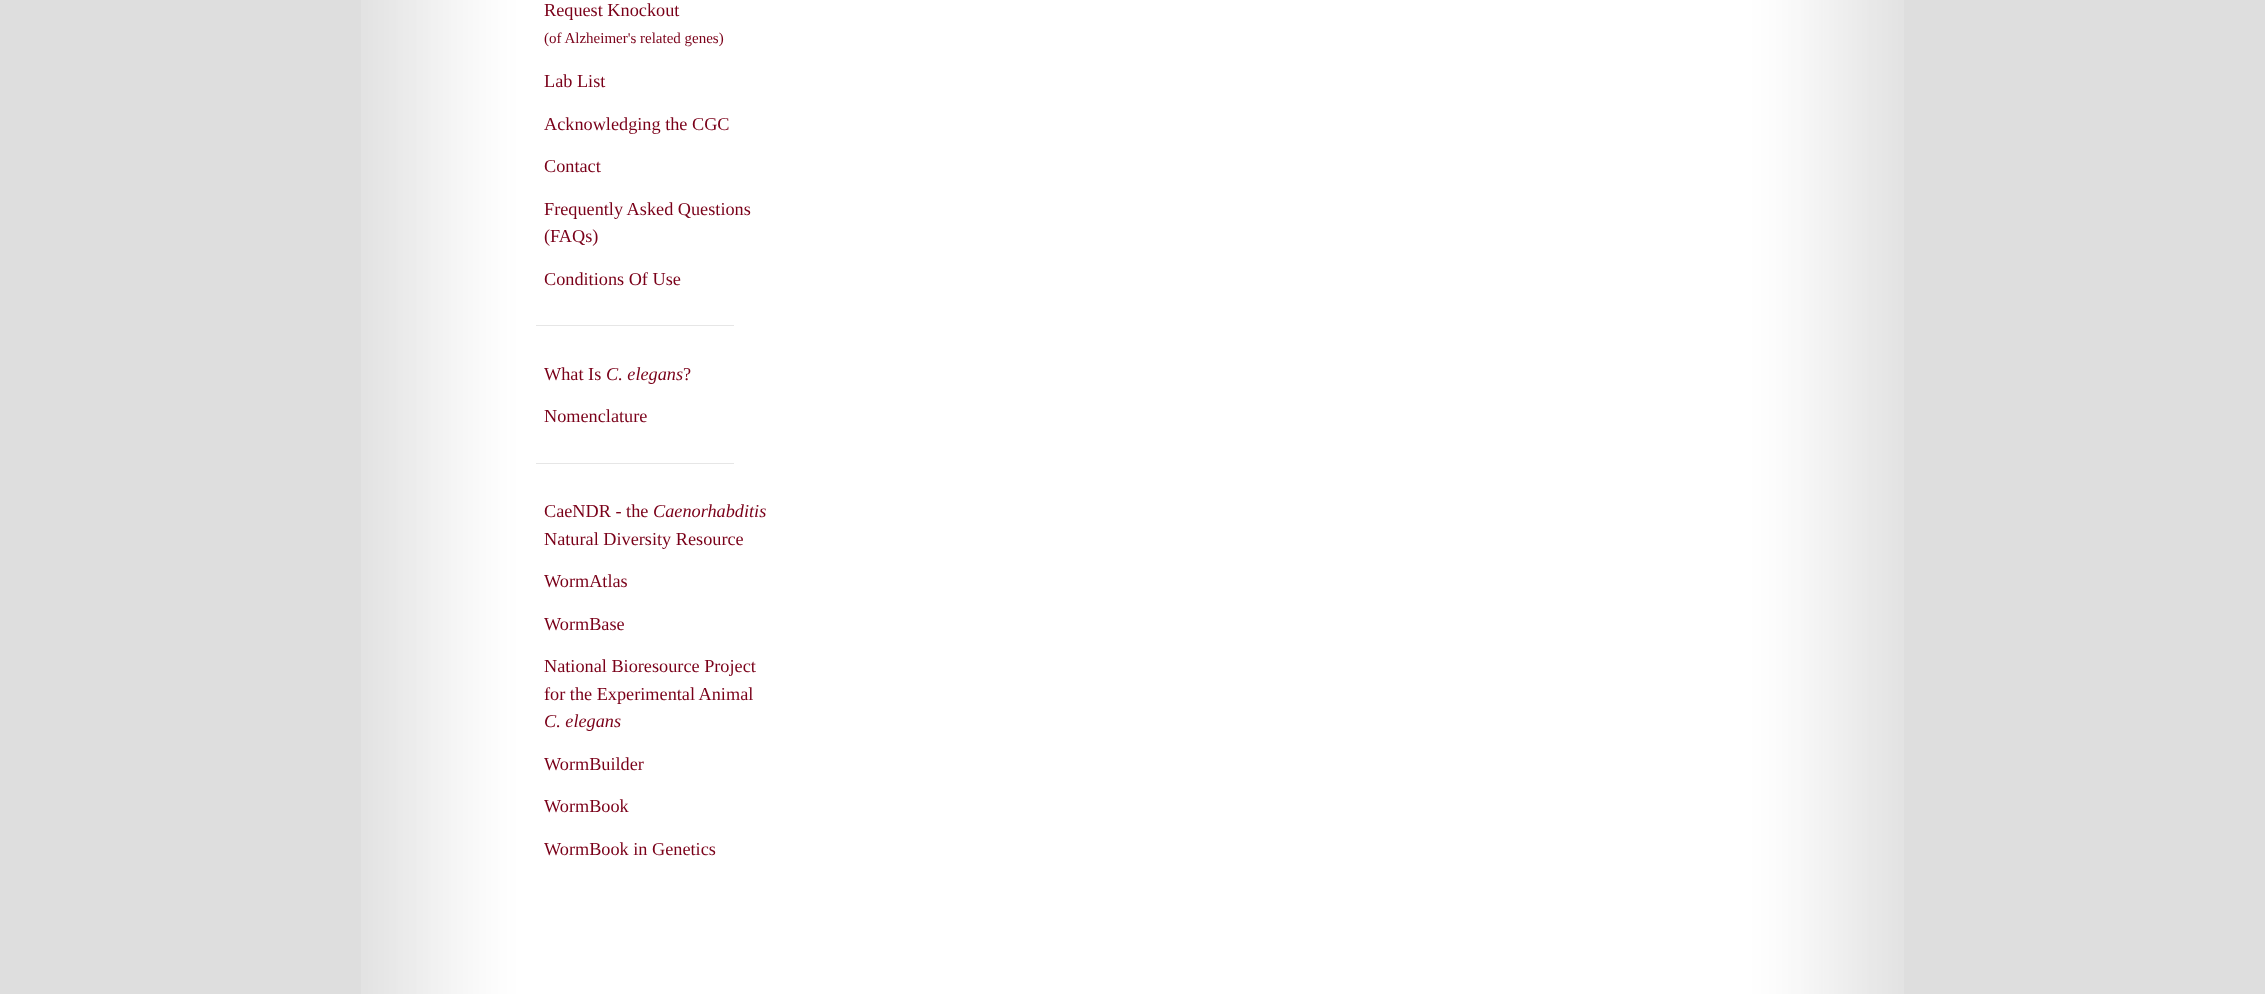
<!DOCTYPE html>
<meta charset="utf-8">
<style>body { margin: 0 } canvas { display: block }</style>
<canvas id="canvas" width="2265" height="994"></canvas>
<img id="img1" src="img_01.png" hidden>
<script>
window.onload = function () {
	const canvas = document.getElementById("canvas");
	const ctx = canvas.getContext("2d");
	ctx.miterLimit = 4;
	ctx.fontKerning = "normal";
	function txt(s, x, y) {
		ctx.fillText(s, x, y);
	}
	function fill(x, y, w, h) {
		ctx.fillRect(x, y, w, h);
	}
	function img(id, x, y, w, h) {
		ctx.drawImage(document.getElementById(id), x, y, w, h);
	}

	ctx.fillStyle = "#DEDEDE";
	fill(0, 0, 2265, 994);
	img("img1", 361, 0, 1543, 994);
	ctx.fillStyle = "#E6E6E6";
	fill(536, 325, 198, 1);
	fill(536, 463, 198, 1);
	ctx.font = "18.25px Liberation Serif";
	ctx.fillStyle = "#7A0019";
	txt("Request Knockout", 544, 16);
	ctx.font = "15px Liberation Serif";
	txt("(of Alzheimer's related genes)", 544, 43);
	ctx.font = "18.25px Liberation Serif";
	txt("Lab List", 544, 87);
	txt("Acknowledging the CGC", 544, 130);
	txt("Contact", 544, 172);
	txt("Frequently Asked Questions", 544, 215);
	txt("(FAQs)", 544, 242);
	txt("Conditions Of Use", 544, 285);
	txt("What Is", 544, 380);
	ctx.font = "italic 18.25px Liberation Serif";
	txt("C. elegans", 606, 380);
	ctx.font = "18.25px Liberation Serif";
	txt("?", 683, 380);
	txt("Nomenclature", 544, 422);
	txt("CaeNDR - the", 544, 517);
	ctx.font = "italic 18.25px Liberation Serif";
	txt("Caenorhabditis", 653, 517);
	ctx.font = "18.25px Liberation Serif";
	txt("Natural Diversity Resource", 544, 545);
	txt("WormAtlas", 544, 587);
	txt("WormBase", 544, 630);
	txt("National Bioresource Project", 544, 672);
	txt("for the Experimental Animal", 544, 700);
	ctx.font = "italic 18.25px Liberation Serif";
	txt("C. elegans", 544, 727);
	ctx.font = "18.25px Liberation Serif";
	txt("WormBuilder", 544, 770);
	txt("WormBook", 544, 812);
	txt("WormBook in Genetics", 544, 855);
};
</script>
